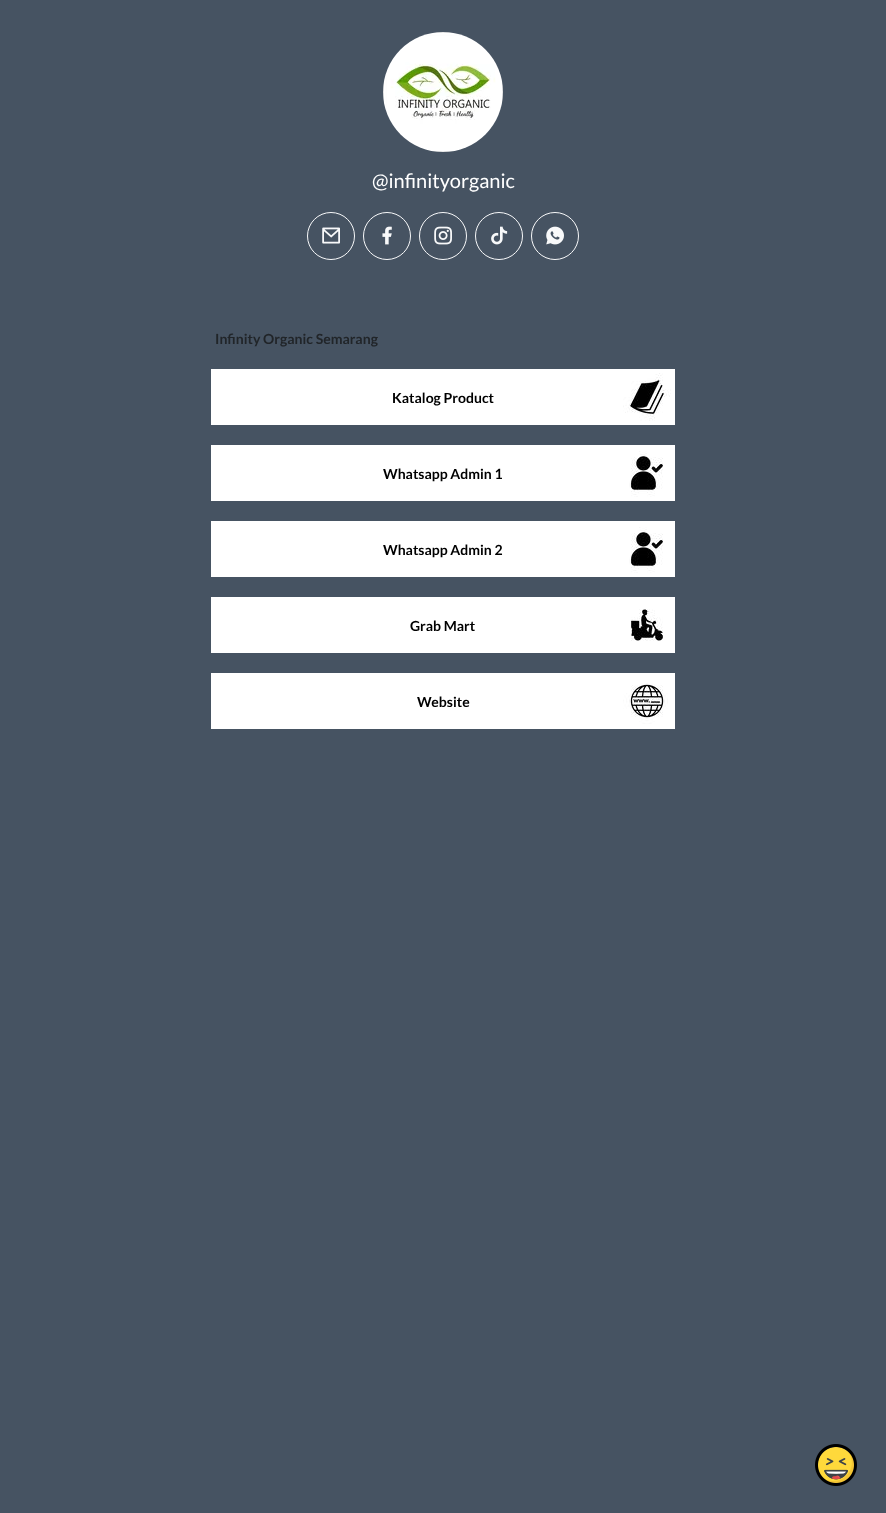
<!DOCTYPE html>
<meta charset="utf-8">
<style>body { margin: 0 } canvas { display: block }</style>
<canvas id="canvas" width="886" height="1513"></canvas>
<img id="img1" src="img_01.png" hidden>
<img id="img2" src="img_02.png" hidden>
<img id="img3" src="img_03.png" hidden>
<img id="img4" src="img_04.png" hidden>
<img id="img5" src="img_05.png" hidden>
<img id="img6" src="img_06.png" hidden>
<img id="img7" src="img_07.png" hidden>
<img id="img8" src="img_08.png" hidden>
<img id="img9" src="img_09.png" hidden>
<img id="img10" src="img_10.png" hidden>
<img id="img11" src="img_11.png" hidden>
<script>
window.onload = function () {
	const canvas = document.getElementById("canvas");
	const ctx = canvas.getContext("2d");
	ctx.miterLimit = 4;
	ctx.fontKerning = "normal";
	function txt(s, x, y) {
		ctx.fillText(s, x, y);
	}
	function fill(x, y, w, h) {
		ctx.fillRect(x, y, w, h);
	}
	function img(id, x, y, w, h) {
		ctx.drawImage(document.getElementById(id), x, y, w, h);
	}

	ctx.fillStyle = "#465362";
	fill(0, 0, 886, 1513);
	img("img1", 383, 32, 120, 120);
	ctx.beginPath();
	ctx.arc(331, 236, 23.5, 0, Math.PI * 2);
	ctx.strokeStyle = "#F8F9FA";
	ctx.stroke();
	img("img2", 322, 227, 18, 17);
	ctx.beginPath();
	ctx.arc(387, 236, 23.5, 0, Math.PI * 2);
	ctx.stroke();
	img("img3", 382, 226, 10, 19);
	ctx.beginPath();
	ctx.arc(443, 236, 23.5, 0, Math.PI * 2);
	ctx.stroke();
	img("img4", 434, 226, 18, 19);
	ctx.beginPath();
	ctx.arc(499, 236, 23.5, 0, Math.PI * 2);
	ctx.stroke();
	img("img5", 491, 226, 17, 19);
	ctx.beginPath();
	ctx.arc(555, 236, 23.5, 0, Math.PI * 2);
	ctx.stroke();
	img("img6", 546, 226, 18, 19);
	ctx.fillStyle = "#FFFFFF";
	fill(211, 369, 464, 56);
	img("img7", 623, 373, 48, 48);
	fill(211, 445, 464, 56);
	img("img8", 629, 451, 34, 46);
	fill(211, 521, 464, 56);
	img("img8", 629, 527, 34, 46);
	fill(211, 597, 464, 56);
	img("img9", 631, 609, 32, 32);
	fill(211, 673, 464, 56);
	img("img10", 623, 683, 45, 41);
	img("img11", 815, 1444, 42, 42);
	ctx.font = "20px Lato";
	txt("@infinityorganic", 372, 188);
	ctx.font = "bold 14px Lato";
	ctx.fillStyle = "#212529";
	txt("Infinity Organic Semarang", 215, 344);
	ctx.fillStyle = "#000000";
	txt("Katalog Product", 392, 403);
	txt("Whatsapp Admin 1", 383, 479);
	txt("Whatsapp Admin 2", 383, 555);
	txt("Grab Mart", 410, 631);
	txt("Website", 417, 707);
};
</script>
